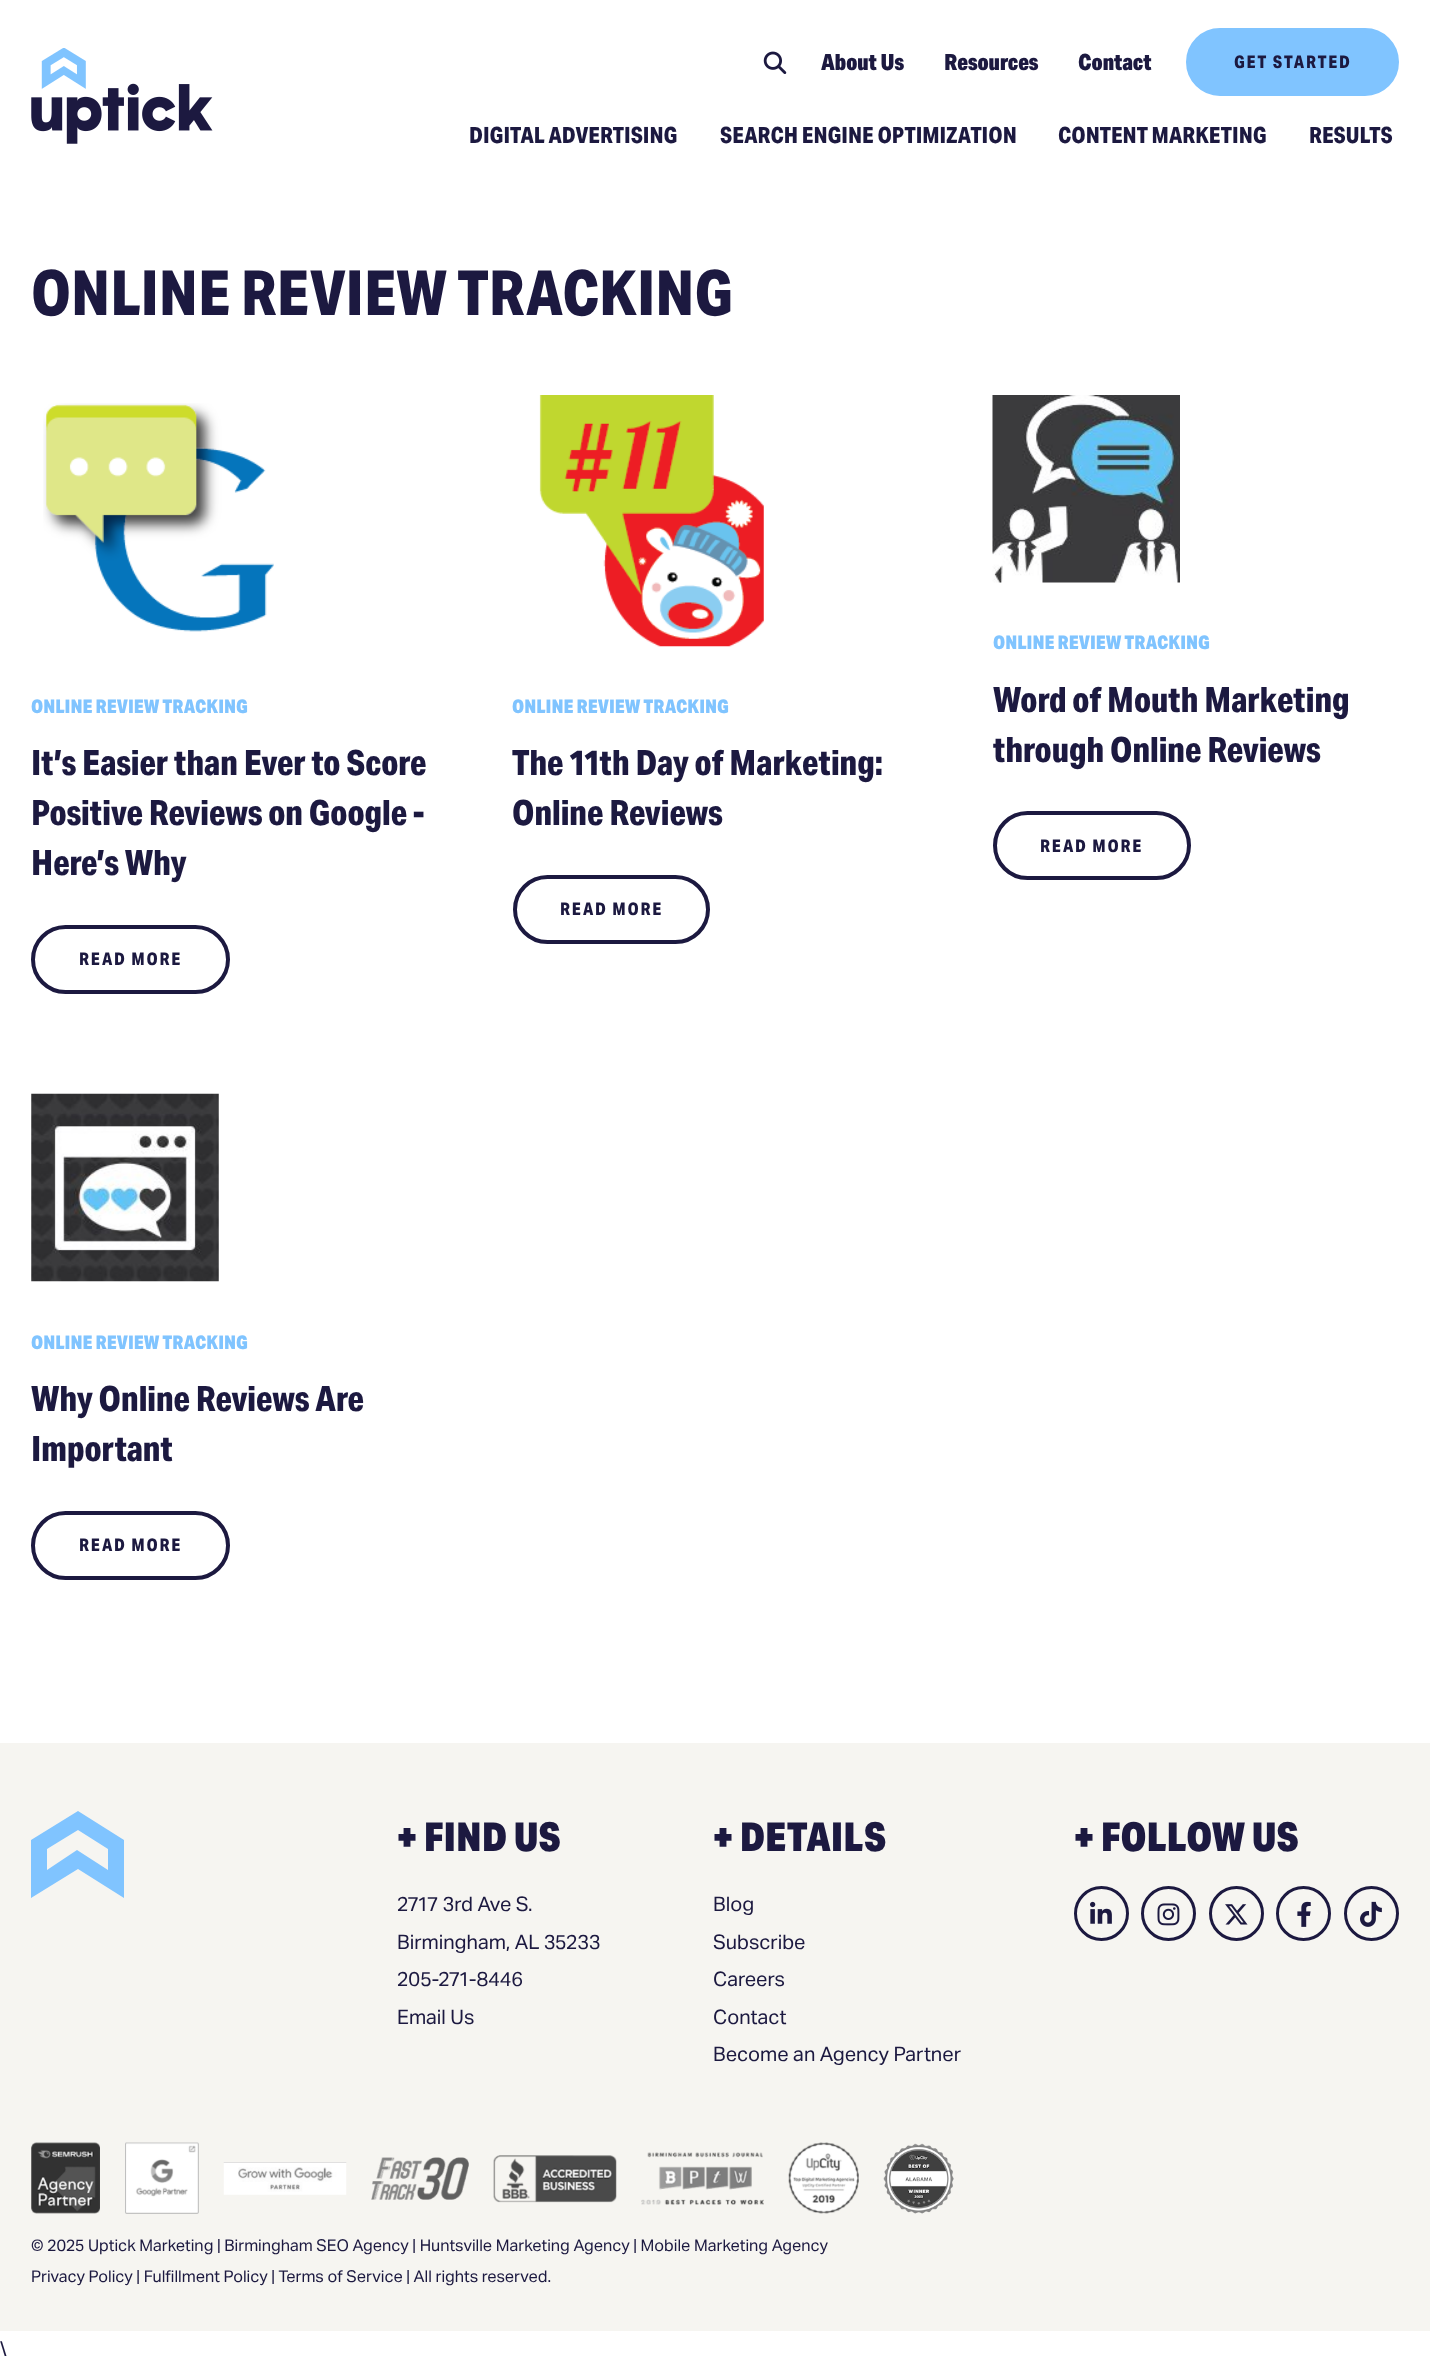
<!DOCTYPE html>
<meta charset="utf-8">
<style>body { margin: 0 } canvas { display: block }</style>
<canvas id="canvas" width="1430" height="2376"></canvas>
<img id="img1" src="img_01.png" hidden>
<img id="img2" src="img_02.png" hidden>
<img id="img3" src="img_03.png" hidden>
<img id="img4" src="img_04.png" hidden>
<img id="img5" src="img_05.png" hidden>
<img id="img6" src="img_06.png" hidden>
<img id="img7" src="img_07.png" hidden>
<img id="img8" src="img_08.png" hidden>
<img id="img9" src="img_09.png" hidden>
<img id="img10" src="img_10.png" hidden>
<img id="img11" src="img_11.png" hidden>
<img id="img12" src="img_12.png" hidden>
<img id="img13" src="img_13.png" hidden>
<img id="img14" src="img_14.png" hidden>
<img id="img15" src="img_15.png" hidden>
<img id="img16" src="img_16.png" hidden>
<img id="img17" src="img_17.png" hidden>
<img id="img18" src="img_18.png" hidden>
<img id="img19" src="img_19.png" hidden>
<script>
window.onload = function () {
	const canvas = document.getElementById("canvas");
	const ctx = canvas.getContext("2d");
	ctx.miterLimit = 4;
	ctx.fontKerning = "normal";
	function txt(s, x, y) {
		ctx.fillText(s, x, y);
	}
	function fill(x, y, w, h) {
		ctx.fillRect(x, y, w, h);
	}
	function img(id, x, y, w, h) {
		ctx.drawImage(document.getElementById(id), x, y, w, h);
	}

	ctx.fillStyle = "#FFFFFF";
	fill(0, 0, 1430, 2376);
	img("img1", 31, 48, 182, 96);
	img("img2", 763, 51, 24, 23);
	ctx.fillStyle = "#80C4FF";
	ctx.beginPath();
	ctx.roundRect(1188, 30, 209, 64, 32);
	ctx.fill();
	ctx.strokeStyle = "#80C4FF";
	ctx.lineWidth = 4;
	ctx.stroke();
	img("img3", 43, 403, 231, 229);
	ctx.beginPath();
	ctx.roundRect(33, 927, 195, 65, 32.5);
	ctx.strokeStyle = "#1C1940";
	ctx.stroke();
	img("img4", 539, 395, 225, 252);
	ctx.beginPath();
	ctx.roundRect(515, 877, 193, 65, 32.5);
	ctx.stroke();
	img("img5", 992, 395, 188, 188);
	ctx.beginPath();
	ctx.roundRect(995, 813, 194, 65, 32.5);
	ctx.stroke();
	img("img6", 31, 1093, 188, 189);
	ctx.beginPath();
	ctx.roundRect(33, 1513, 195, 65, 32.5);
	ctx.stroke();
	ctx.fillStyle = "#F6F5F1";
	fill(0, 1743, 1430, 588);
	ctx.fillStyle = "#80C4FF";
	ctx.beginPath();
	ctx.moveTo(78, 1830);
	ctx.lineTo(108, 1849);
	ctx.lineTo(108, 1870);
	ctx.lineTo(77, 1850);
	ctx.lineTo(47, 1870);
	ctx.lineTo(47, 1849);
	ctx.closePath();
	ctx.moveTo(78, 1811);
	ctx.lineTo(31, 1840);
	ctx.lineTo(31, 1898);
	ctx.lineTo(78, 1869);
	ctx.lineTo(124, 1898);
	ctx.lineTo(124, 1840);
	ctx.closePath();
	ctx.fill();
	ctx.beginPath();
	ctx.arc(1101.5, 1913.5, 26, 0, Math.PI * 2);
	ctx.lineWidth = 3;
	ctx.stroke();
	img("img7", 1090, 1901, 22, 23);
	ctx.beginPath();
	ctx.arc(1168.5, 1913.5, 26, 0, Math.PI * 2);
	ctx.stroke();
	img("img8", 1157, 1903, 23, 23);
	ctx.beginPath();
	ctx.arc(1236.5, 1913.5, 26, 0, Math.PI * 2);
	ctx.stroke();
	img("img9", 1225, 1904, 23, 21);
	ctx.beginPath();
	ctx.arc(1303.5, 1913.5, 26, 0, Math.PI * 2);
	ctx.stroke();
	img("img10", 1297, 1901, 14, 26);
	ctx.beginPath();
	ctx.arc(1371.5, 1913.5, 26, 0, Math.PI * 2);
	ctx.stroke();
	img("img11", 1360, 1901, 22, 26);
	img("img12", 31, 2142, 69, 72);
	img("img13", 125, 2142, 74, 72);
	img("img14", 223, 2162, 124, 33);
	img("img15", 371, 2157, 98, 43);
	img("img16", 493, 2155, 124, 48);
	img("img17", 641, 2152, 123, 53);
	img("img18", 788, 2142, 71, 72);
	img("img19", 883, 2143, 71, 71);
	ctx.font = "900 22.5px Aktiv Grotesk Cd";
	ctx.fillStyle = "#1C1940";
	txt("About Us", 821, 70);
	txt("Resources", 944, 70);
	txt("Contact", 1078, 70);
	ctx.letterSpacing = "1.75px";
	ctx.font = "bold 17.5px Aktiv Grotesk Cd";
	txt("GET STARTED", 1234, 68);
	ctx.letterSpacing = "0px";
	ctx.font = "bold 22.5px Aktiv Grotesk Cd";
	txt("DIGITAL ADVERTISING", 469, 143);
	txt("SEARCH ENGINE OPTIMIZATION", 720, 143);
	txt("CONTENT MARKETING", 1058, 143);
	txt("RESULTS", 1309, 143);
	ctx.font = "bold 62.5px Aktiv Grotesk Cd";
	txt("ONLINE REVIEW TRACKING", 31, 315);
	ctx.font = "900 18.75px Aktiv Grotesk Cd";
	ctx.fillStyle = "#80C4FF";
	txt("ONLINE REVIEW TRACKING", 31, 713);
	ctx.font = "bold 35px Aktiv Grotesk Cd";
	ctx.fillStyle = "#1C1940";
	txt("It’s Easier than Ever to Score", 31, 775);
	txt("Positive Reviews on Google -", 31, 825);
	txt("Here’s Why", 31, 875);
	ctx.letterSpacing = "1.75px";
	ctx.font = "bold 17.5px Aktiv Grotesk Cd";
	txt("READ MORE", 79, 965);
	ctx.letterSpacing = "0px";
	ctx.font = "900 18.75px Aktiv Grotesk Cd";
	ctx.fillStyle = "#80C4FF";
	txt("ONLINE REVIEW TRACKING", 512, 713);
	ctx.font = "bold 35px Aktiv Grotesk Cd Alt";
	ctx.fillStyle = "#1C1940";
	txt("The 11th Day of Marketing:", 512, 775);
	ctx.font = "bold 35px Aktiv Grotesk Cd";
	txt("Online Reviews", 512, 825);
	ctx.letterSpacing = "1.75px";
	ctx.font = "bold 17.5px Aktiv Grotesk Cd";
	txt("READ MORE", 560, 915);
	ctx.letterSpacing = "0px";
	ctx.font = "900 18.75px Aktiv Grotesk Cd";
	ctx.fillStyle = "#80C4FF";
	txt("ONLINE REVIEW TRACKING", 993, 649);
	ctx.font = "bold 35px Aktiv Grotesk Cd";
	ctx.fillStyle = "#1C1940";
	txt("Word of Mouth Marketing", 993, 712);
	txt("through Online Reviews", 993, 762);
	ctx.letterSpacing = "1.75px";
	ctx.font = "bold 17.5px Aktiv Grotesk Cd";
	txt("READ MORE", 1040, 852);
	ctx.letterSpacing = "0px";
	ctx.font = "900 18.75px Aktiv Grotesk Cd";
	ctx.fillStyle = "#80C4FF";
	txt("ONLINE REVIEW TRACKING", 31, 1349);
	ctx.font = "bold 35px Aktiv Grotesk Cd";
	ctx.fillStyle = "#1C1940";
	txt("Why Online Reviews Are", 31, 1411);
	txt("Important", 31, 1461);
	ctx.letterSpacing = "1.75px";
	ctx.font = "bold 17.5px Aktiv Grotesk Cd";
	txt("READ MORE", 79, 1551);
	ctx.letterSpacing = "0px";
	ctx.font = "900 40px Aktiv Grotesk Cd";
	txt("+ FIND US", 397, 1851);
	ctx.font = "20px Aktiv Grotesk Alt";
	txt("2717 3rd Ave S.", 397, 1911);
	txt("Birmingham, AL 35233", 397, 1949);
	txt("205-271-8446", 397, 1986);
	ctx.font = "20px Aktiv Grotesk";
	txt("Email Us", 397, 2024);
	ctx.font = "900 40px Aktiv Grotesk Cd";
	txt("+ DETAILS", 713, 1851);
	ctx.font = "20px Aktiv Grotesk";
	txt("Blog", 713, 1911);
	txt("Subscribe", 713, 1949);
	txt("Careers", 713, 1986);
	txt("Contact", 713, 2024);
	txt("Become an Agency Partner", 713, 2061);
	ctx.font = "900 40px Aktiv Grotesk Cd";
	txt("+ FOLLOW US", 1074, 1851);
	ctx.font = "16.25px Aktiv Grotesk Alt";
	txt("© 2025", 31, 2251);
	ctx.font = "16.25px Aktiv Grotesk";
	txt("Uptick Marketing | Birmingham SEO Agency | Huntsville Marketing Agency | Mobile Marketing Agency", 88, 2251);
	txt("Privacy Policy | Fulfillment Policy | Terms of Service | All rights reserved.", 31, 2282);
	ctx.font = "20px Aktiv Grotesk";
	txt("\\", 0, 2356);
};
</script>
